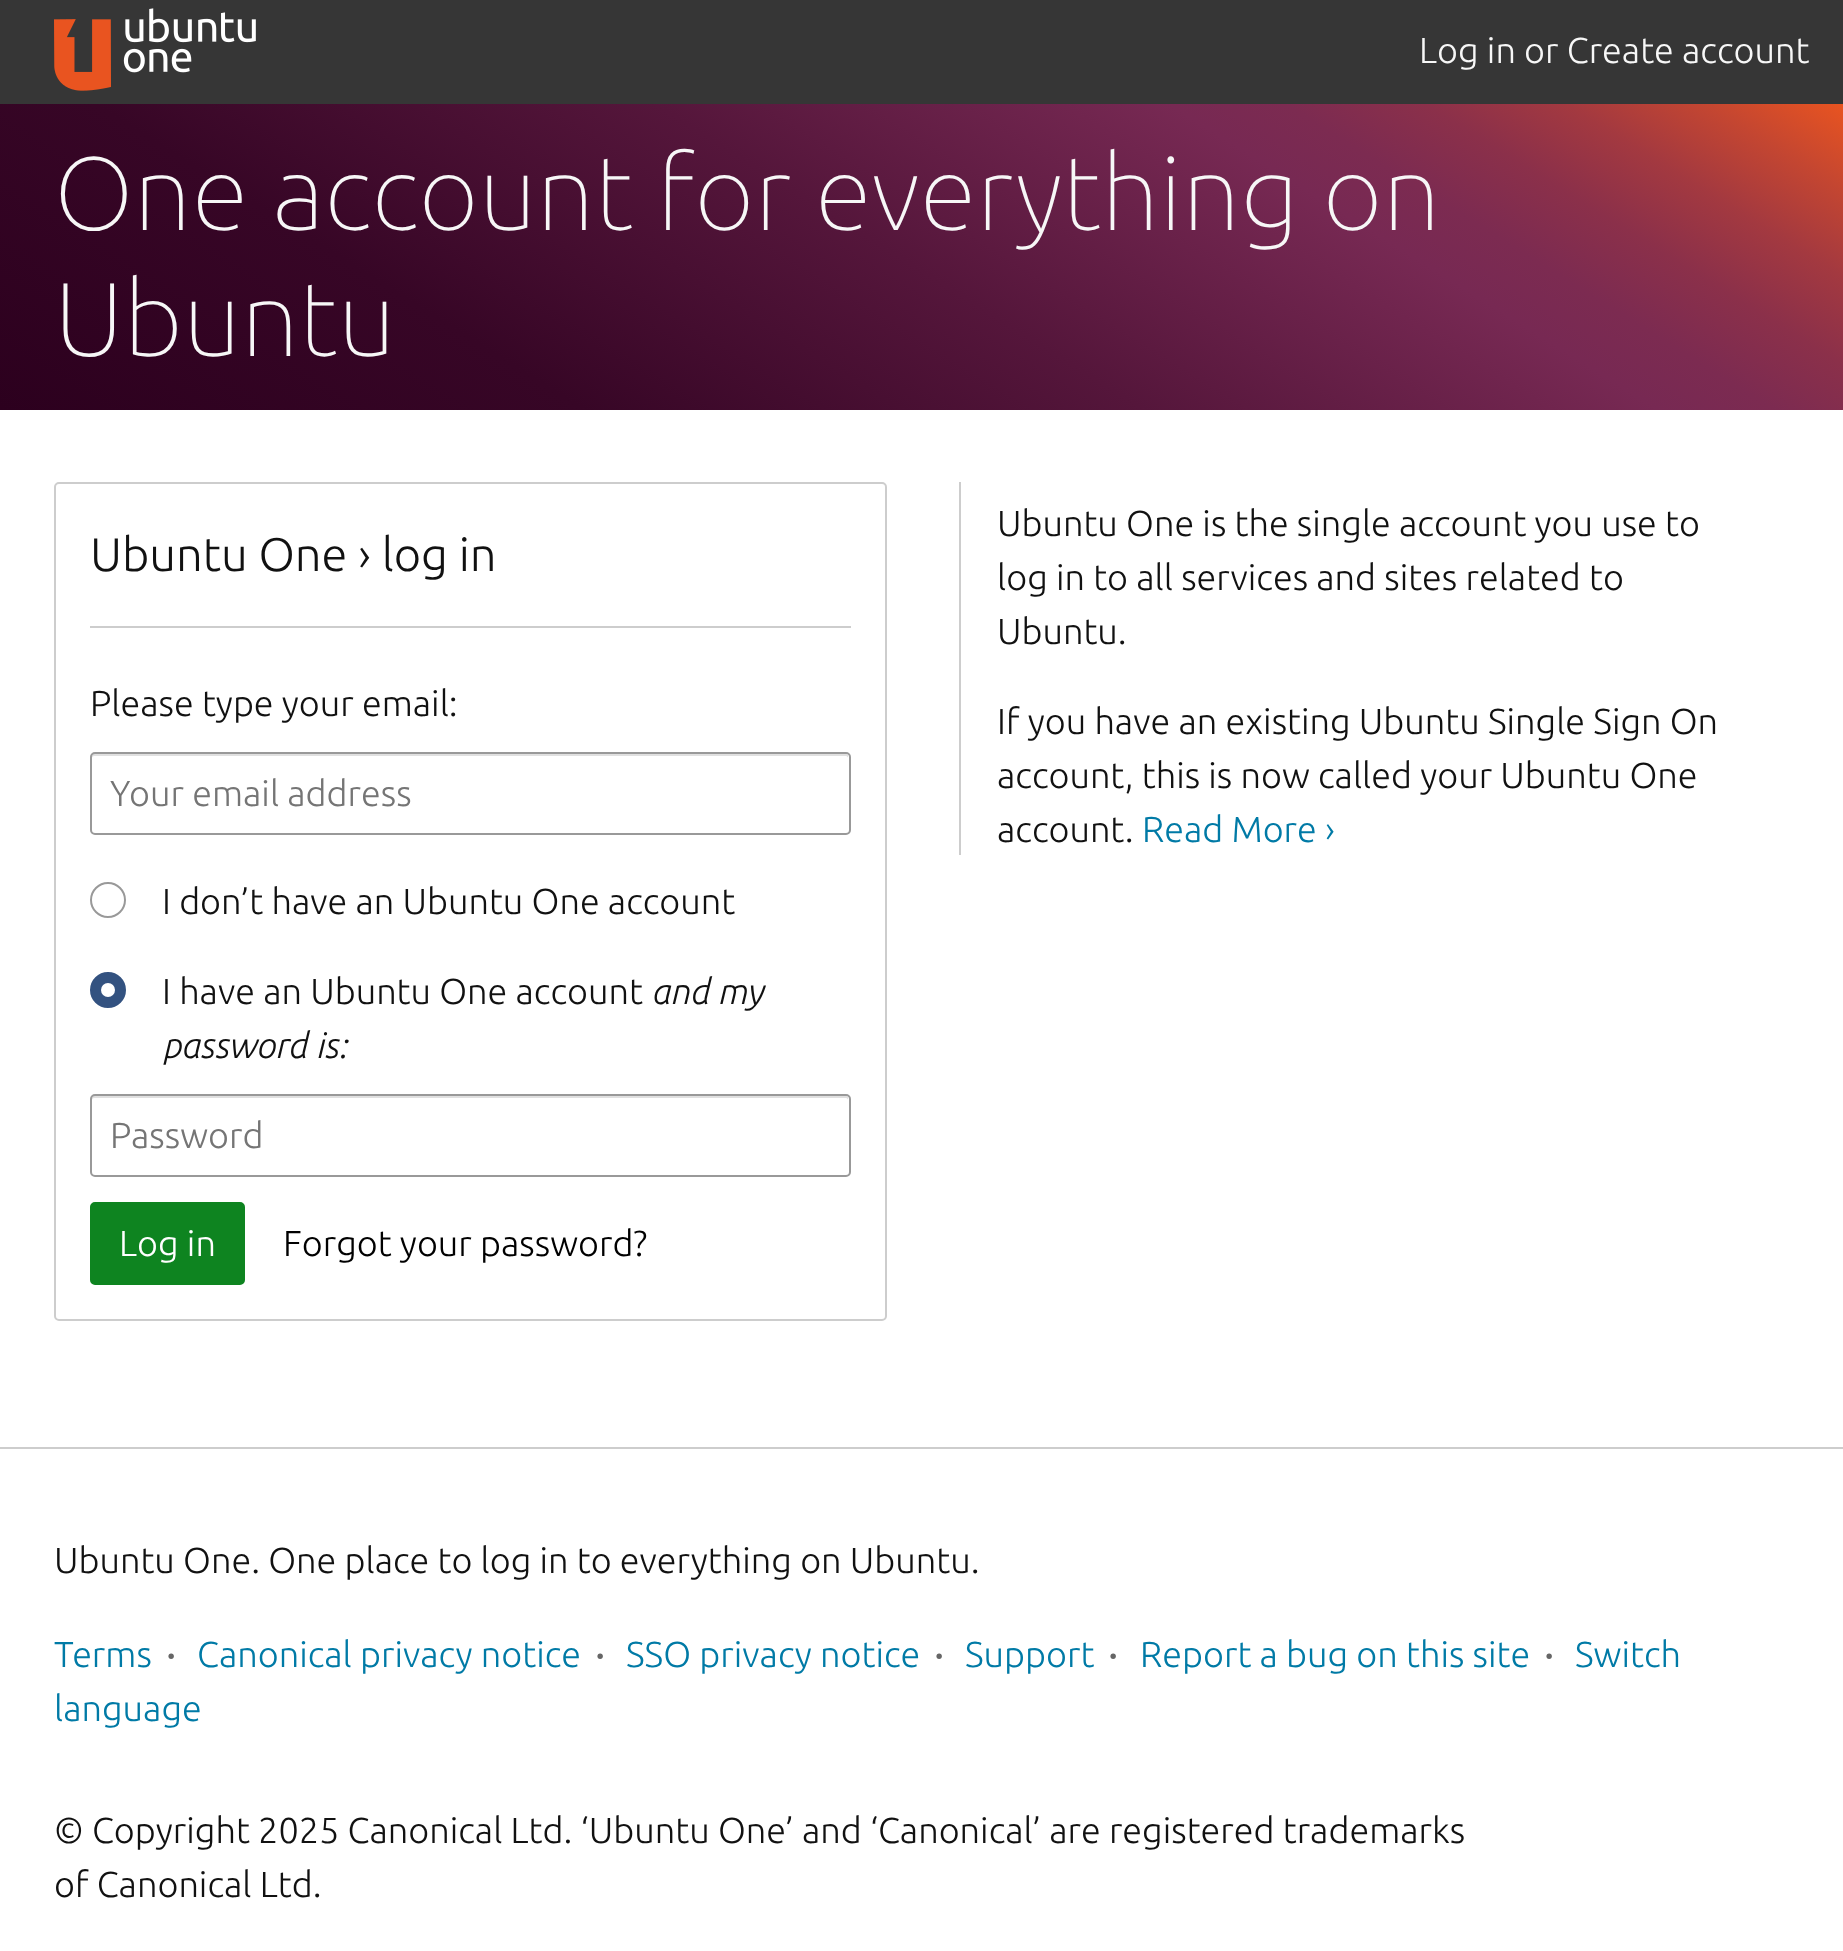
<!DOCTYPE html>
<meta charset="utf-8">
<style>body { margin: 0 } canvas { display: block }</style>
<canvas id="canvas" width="1843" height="1951"></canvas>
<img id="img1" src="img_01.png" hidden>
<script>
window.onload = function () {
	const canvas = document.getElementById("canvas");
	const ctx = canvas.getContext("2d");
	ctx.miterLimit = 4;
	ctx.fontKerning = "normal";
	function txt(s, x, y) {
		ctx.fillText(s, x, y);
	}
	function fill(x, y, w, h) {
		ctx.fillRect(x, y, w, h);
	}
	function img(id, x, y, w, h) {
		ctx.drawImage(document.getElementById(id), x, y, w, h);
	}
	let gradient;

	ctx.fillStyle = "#FFFFFF";
	fill(0, 0, 1843, 1951);
	ctx.fillStyle = "#363636";
	fill(0, 0, 1843, 104);
	img("img1", 54, 8, 202, 83);
	gradient = ctx.createLinearGradient(1250, -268, 595, 781);
	gradient.addColorStop(0, "#E95420");
	gradient.addColorStop(0.06, "#C44631");
	gradient.addColorStop(0.12, "#A33940");
	gradient.addColorStop(0.18, "#8B304A");
	gradient.addColorStop(0.24, "#7C2B51");
	gradient.addColorStop(0.29, "#772953");
	gradient.addColorStop(0.51, "#55163B");
	gradient.addColorStop(0.75, "#370626");
	gradient.addColorStop(1, "#2C001E");
	ctx.fillStyle = gradient;
	fill(0, 104, 1843, 306);
	ctx.beginPath();
	ctx.roundRect(55, 483, 831, 837, 4);
	ctx.strokeStyle = "#CDCDCD";
	ctx.lineWidth = 2;
	ctx.stroke();
	ctx.fillStyle = "#CDCDCD";
	fill(90, 626, 761, 2);
	ctx.fillStyle = "#E0E0E0";
	ctx.beginPath();
	ctx.moveTo(94, 756);
	ctx.lineTo(846, 756);
	ctx.bezierCurveTo(847, 756, 848, 757, 848, 758);
	ctx.lineTo(848, 755);
	ctx.lineTo(846, 754);
	ctx.lineTo(94, 754);
	ctx.bezierCurveTo(92, 754, 92, 756, 92, 758);
	ctx.bezierCurveTo(92, 757, 93, 756, 94, 756);
	ctx.closePath();
	ctx.fill();
	ctx.beginPath();
	ctx.roundRect(91, 753, 759, 81, 4);
	ctx.strokeStyle = "#999999";
	ctx.stroke();
	ctx.beginPath();
	ctx.arc(108, 900, 17, 0, Math.PI * 2);
	ctx.stroke();
	ctx.fillStyle = "#335280";
	ctx.beginPath();
	ctx.arc(108, 990, 17, 0, Math.PI * 2);
	ctx.fill();
	ctx.strokeStyle = "#335280";
	ctx.stroke();
	ctx.fillStyle = "#FFFFFF";
	ctx.beginPath();
	ctx.arc(108, 990, 7, 0, Math.PI * 2);
	ctx.fill();
	ctx.fillStyle = "#E0E0E0";
	ctx.beginPath();
	ctx.moveTo(94, 1098);
	ctx.lineTo(846, 1098);
	ctx.bezierCurveTo(847, 1098, 848, 1099, 848, 1100);
	ctx.lineTo(848, 1097);
	ctx.lineTo(846, 1096);
	ctx.lineTo(94, 1096);
	ctx.bezierCurveTo(92, 1096, 92, 1098, 92, 1100);
	ctx.bezierCurveTo(92, 1099, 93, 1098, 94, 1098);
	ctx.closePath();
	ctx.fill();
	ctx.beginPath();
	ctx.roundRect(91, 1095, 759, 81, 4);
	ctx.strokeStyle = "#999999";
	ctx.stroke();
	ctx.fillStyle = "#0E8420";
	ctx.beginPath();
	ctx.roundRect(91, 1203, 153, 81, 4);
	ctx.fill();
	ctx.strokeStyle = "#0E8420";
	ctx.stroke();
	ctx.fillStyle = "#CDCDCD";
	fill(959, 482, 2, 373);
	fill(0, 1447, 1843, 2);
	ctx.font = "300 36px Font";
	ctx.fillStyle = "#F7F7F7";
	txt("Log in or Create account", 1419, 63);
	ctx.font = "200 104.75px Font";
	txt("One account for everything on", 54, 230);
	txt("Ubuntu", 54, 356);
	ctx.font = "300 47px Font";
	ctx.fillStyle = "#111111";
	txt("Ubuntu One › log in", 90, 571);
	ctx.font = "300 36px Font";
	txt("Please type your email:", 90, 716);
	ctx.fillStyle = "#757575";
	txt("Your email address", 110, 806);
	ctx.fillStyle = "#111111";
	txt("I don’t have an Ubuntu One account", 162, 914);
	txt("I have an Ubuntu One account", 162, 1004);
	ctx.font = "italic 300 36px Font";
	txt("and my", 651, 1004);
	txt("password is:", 162, 1058);
	ctx.font = "300 36px Font";
	ctx.fillStyle = "#757575";
	txt("Password", 110, 1148);
	ctx.fillStyle = "#FFFFFF";
	txt("Log in", 119, 1256);
	ctx.fillStyle = "#000000";
	txt("Forgot your password?", 283, 1256);
	ctx.fillStyle = "#111111";
	txt("Ubuntu One is the single account you use to", 997, 536);
	txt("log in to all services and sites related to", 997, 590);
	txt("Ubuntu.", 997, 644);
	txt("If you have an existing Ubuntu Single Sign On", 997, 734);
	txt("account, this is now called your Ubuntu One", 997, 788);
	txt("account.", 997, 842);
	ctx.fillStyle = "#007AA6";
	txt("Read More ›", 1142, 842);
	ctx.fillStyle = "#111111";
	txt("Ubuntu One. One place to log in to everything on Ubuntu.", 54, 1573);
	ctx.fillStyle = "#007AA6";
	txt("Terms", 54, 1667);
	ctx.font = "300 50px Font";
	ctx.fillStyle = "#666666";
	txt("·", 165, 1671);
	ctx.font = "300 36px Font";
	ctx.fillStyle = "#007AA6";
	txt("Canonical privacy notice", 197, 1667);
	ctx.font = "300 50px Font";
	ctx.fillStyle = "#666666";
	txt("·", 594, 1671);
	ctx.font = "300 36px Font";
	ctx.fillStyle = "#007AA6";
	txt("SSO privacy notice", 626, 1667);
	ctx.font = "300 50px Font";
	ctx.fillStyle = "#666666";
	txt("·", 933, 1671);
	ctx.font = "300 36px Font";
	ctx.fillStyle = "#007AA6";
	txt("Support", 965, 1667);
	ctx.font = "300 50px Font";
	ctx.fillStyle = "#666666";
	txt("·", 1107, 1671);
	ctx.font = "300 36px Font";
	ctx.fillStyle = "#007AA6";
	txt("Report a bug on this site", 1140, 1667);
	ctx.font = "300 50px Font";
	ctx.fillStyle = "#666666";
	txt("·", 1543, 1671);
	ctx.font = "300 36px Font";
	ctx.fillStyle = "#007AA6";
	txt("Switch", 1575, 1667);
	txt("language", 54, 1721);
	ctx.fillStyle = "#111111";
	txt("© Copyright 2025 Canonical Ltd. ‘Ubuntu One’ and ‘Canonical’ are registered trademarks", 54, 1843);
	txt("of Canonical Ltd.", 54, 1897);
};
</script>
